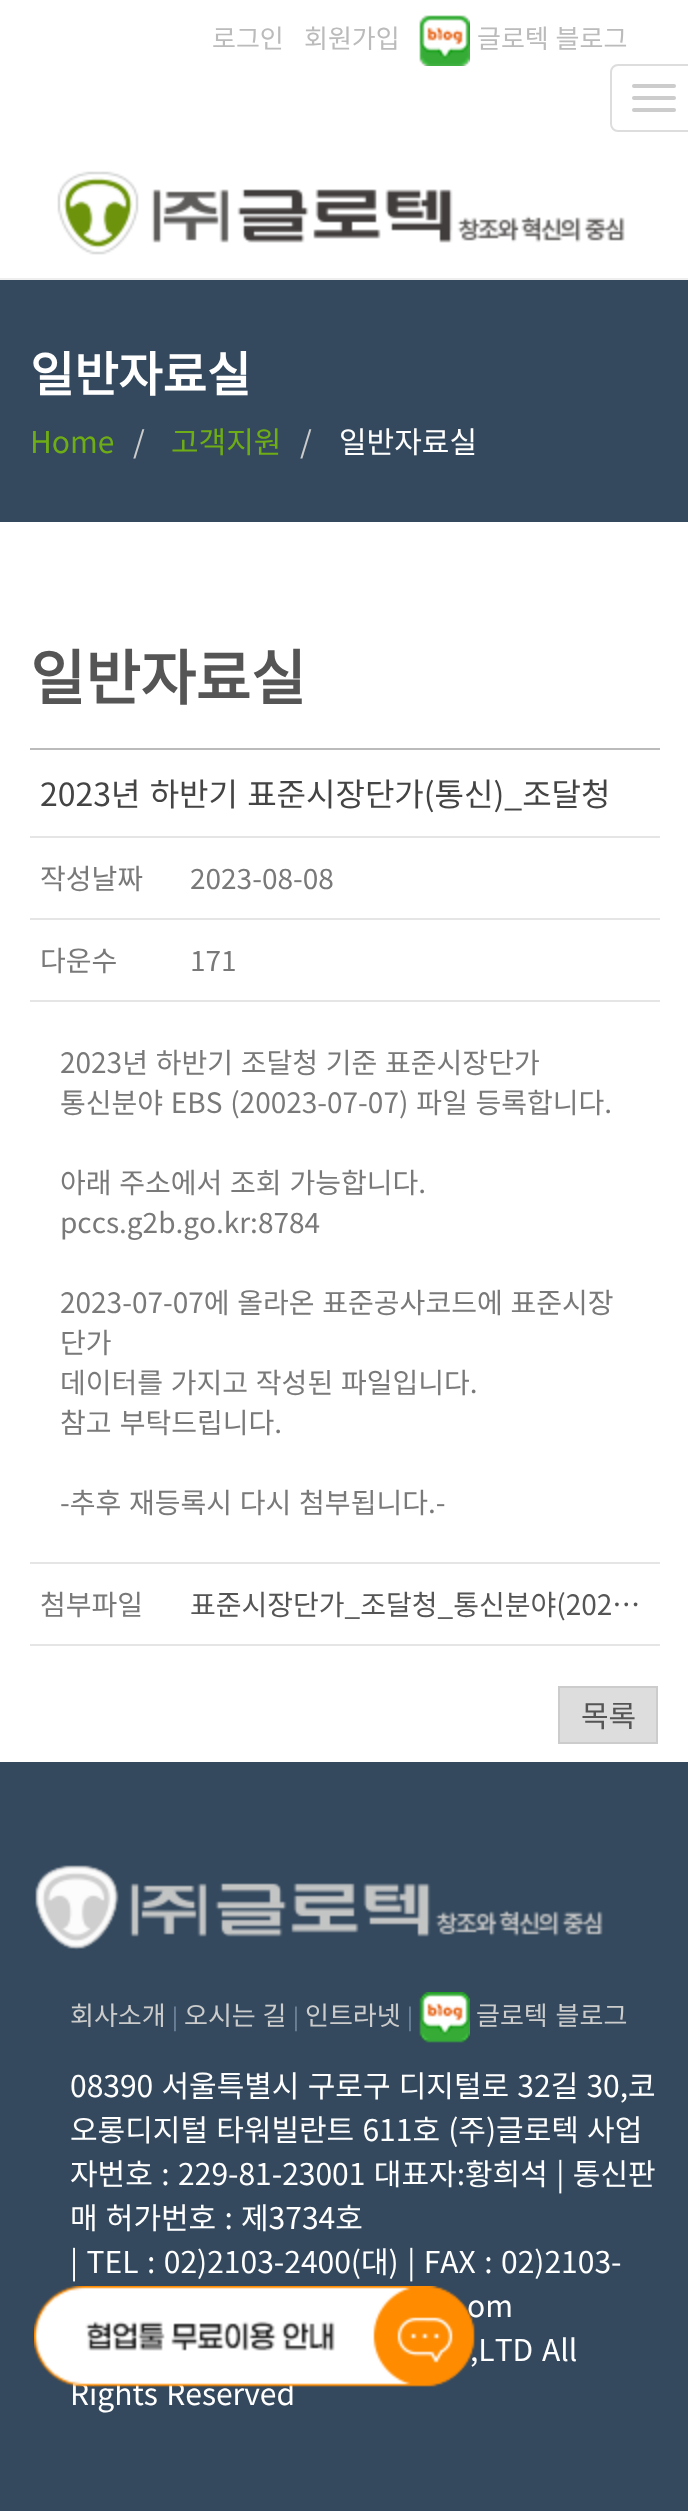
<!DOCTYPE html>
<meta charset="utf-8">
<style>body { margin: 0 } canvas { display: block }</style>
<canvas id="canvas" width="688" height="2511"></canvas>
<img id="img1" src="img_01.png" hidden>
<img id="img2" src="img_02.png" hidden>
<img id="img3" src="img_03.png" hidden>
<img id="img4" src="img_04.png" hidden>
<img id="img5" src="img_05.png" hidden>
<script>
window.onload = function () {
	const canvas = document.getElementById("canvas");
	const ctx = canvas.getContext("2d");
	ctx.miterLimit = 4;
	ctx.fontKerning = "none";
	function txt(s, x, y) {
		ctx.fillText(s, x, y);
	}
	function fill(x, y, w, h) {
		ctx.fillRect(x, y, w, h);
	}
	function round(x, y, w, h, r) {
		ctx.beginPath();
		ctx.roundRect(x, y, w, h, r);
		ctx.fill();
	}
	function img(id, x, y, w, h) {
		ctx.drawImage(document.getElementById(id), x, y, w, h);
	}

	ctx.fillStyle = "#FFFFFF";
	fill(0, 0, 688, 2511);
	ctx.fillStyle = "#EEEEEE";
	fill(0, 278, 688, 2);
	img("img1", 419, 15, 51, 51);
	ctx.beginPath();
	ctx.roundRect(611, 65, 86, 66, 7);
	ctx.strokeStyle = "#DDDDDD";
	ctx.lineWidth = 2;
	ctx.stroke();
	ctx.fillStyle = "#CCCCCC";
	round(632, 84, 44, 4, 2);
	round(632, 96, 44, 4, 2);
	round(632, 108, 44, 4, 2);
	img("img2", 57, 171, 568, 84);
	ctx.fillStyle = "#34495E";
	fill(0, 280, 688, 242);
	ctx.fillStyle = "#BBBBBB";
	fill(30, 748, 630, 2);
	ctx.fillStyle = "#E5E5E5";
	fill(30, 836, 630, 2);
	fill(30, 918, 630, 2);
	fill(30, 1000, 630, 2);
	fill(30, 1562, 630, 2);
	fill(30, 1644, 630, 2);
	ctx.fillStyle = "#DDDDDD";
	ctx.beginPath();
	ctx.rect(559, 1687, 98, 56);
	ctx.fill();
	ctx.strokeStyle = "#CCCCCC";
	ctx.stroke();
	ctx.fillStyle = "#34495E";
	fill(0, 1762, 688, 749);
	img("img3", 35, 1865, 568, 85);
	img("img4", 419, 1992, 51, 51);
	ctx.font = "100 26px Noto Sans KR";
	ctx.fillStyle = "#BBBBBB";
	txt("로그인", 212, 48);
	txt("회원가입", 304, 48);
	ctx.wordSpacing = "1px";
	txt("글로텍 블로그", 477, 48);
	ctx.wordSpacing = "0px";
	ctx.font = "bold 48px Noto Sans KR";
	ctx.fillStyle = "#FFFFFF";
	txt("일반자료실", 30, 392);
	ctx.font = "100 30px Noto Sans KR";
	ctx.fillStyle = "#6FAD16";
	txt("Home", 30, 453);
	ctx.fillStyle = "#CCCCCC";
	txt("/", 133, 453);
	ctx.fillStyle = "#6FAD16";
	txt("고객지원", 171, 453);
	ctx.fillStyle = "#CCCCCC";
	txt("/", 300, 453);
	ctx.fillStyle = "#FFFFFF";
	txt("일반자료실", 339, 453);
	ctx.font = "bold 60px Noto Sans KR";
	ctx.fillStyle = "#555555";
	txt("일반자료실", 30, 700);
	ctx.wordSpacing = "2px";
	ctx.font = "100 32px Noto Sans KR";
	ctx.fillStyle = "#444444";
	txt("2023년 하반기 표준시장단가(통신)_조달청", 40, 806);
	ctx.wordSpacing = "0px";
	ctx.font = "100 28px Noto Sans KR";
	ctx.fillStyle = "#797979";
	txt("작성날짜", 40, 889);
	txt("2023-08-08", 190, 889);
	txt("다운수", 40, 971);
	txt("171", 190, 971);
	ctx.wordSpacing = "1.5px";
	txt("2023년 하반기 조달청 기준 표준시장단가", 60, 1073);
	txt("통신분야 EBS (20023-07-07) 파일 등록합니다.", 60, 1113);
	txt("아래 주소에서 조회 가능합니다.", 60, 1193);
	ctx.wordSpacing = "0px";
	txt("pccs.g2b.go.kr:8784", 60, 1233);
	ctx.wordSpacing = "1.5px";
	txt("2023-07-07에 올라온 표준공사코드에 표준시장", 60, 1313);
	ctx.wordSpacing = "0px";
	txt("단가", 60, 1353);
	ctx.wordSpacing = "1.5px";
	txt("데이터를 가지고 작성된 파일입니다.", 60, 1393);
	ctx.wordSpacing = "2px";
	txt("참고 부탁드립니다.", 60, 1433);
	ctx.wordSpacing = "1.5px";
	txt("-추후 재등록시 다시 첨부됩니다.-", 60, 1513);
	ctx.wordSpacing = "0px";
	txt("첨부파일", 40, 1615);
	ctx.fillStyle = "#555555";
	txt("표준시장단가_조달청_통신분야(202…", 190, 1615);
	ctx.font = "100 30px Noto Sans KR";
	txt("목록", 581, 1727);
	ctx.font = "100 26px Noto Sans KR";
	ctx.fillStyle = "#CCCCCC";
	txt("회사소개", 70, 2025);
	ctx.font = "100 22px Noto Sans KR";
	ctx.fillStyle = "#7991A8";
	txt("|", 172, 2025);
	ctx.wordSpacing = "1px";
	ctx.font = "100 26px Noto Sans KR";
	ctx.fillStyle = "#CCCCCC";
	txt("오시는 길", 184, 2025);
	ctx.wordSpacing = "0px";
	ctx.font = "100 22px Noto Sans KR";
	ctx.fillStyle = "#7991A8";
	txt("|", 293, 2025);
	ctx.font = "100 26px Noto Sans KR";
	ctx.fillStyle = "#CCCCCC";
	txt("인트라넷", 305, 2025);
	ctx.font = "100 22px Noto Sans KR";
	ctx.fillStyle = "#7991A8";
	txt("|", 407, 2025);
	ctx.wordSpacing = "2px";
	ctx.font = "100 26px Noto Sans KR";
	ctx.fillStyle = "#CCCCCC";
	txt("글로텍 블로그", 476, 2025);
	ctx.wordSpacing = "1.5px";
	ctx.font = "100 30px Noto Sans KR";
	ctx.fillStyle = "#FFFFFF";
	txt("08390 서울특별시 구로구 디지털로 32길 30,코", 70, 2097);
	txt("오롱디지털 타워빌란트 611호 (주)글로텍 사업", 70, 2141);
	ctx.wordSpacing = "1.75px";
	txt("자번호 : 229-81-23001 대표자:황희석 | 통신판", 70, 2185);
	ctx.wordSpacing = "1.5px";
	txt("매 허가번호 : 제3734호", 70, 2229);
	ctx.wordSpacing = "1.75px";
	txt("| TEL : 02)2103-2400(대) | FAX : 02)2103-", 70, 2273);
	txt("om", 467, 2317);
	ctx.wordSpacing = "2px";
	txt(",LTD All", 470, 2361);
	ctx.wordSpacing = "1.75px";
	txt("Rights Reserved", 70, 2405);
	img("img5", 34, 2286, 441, 101);
};
</script>
